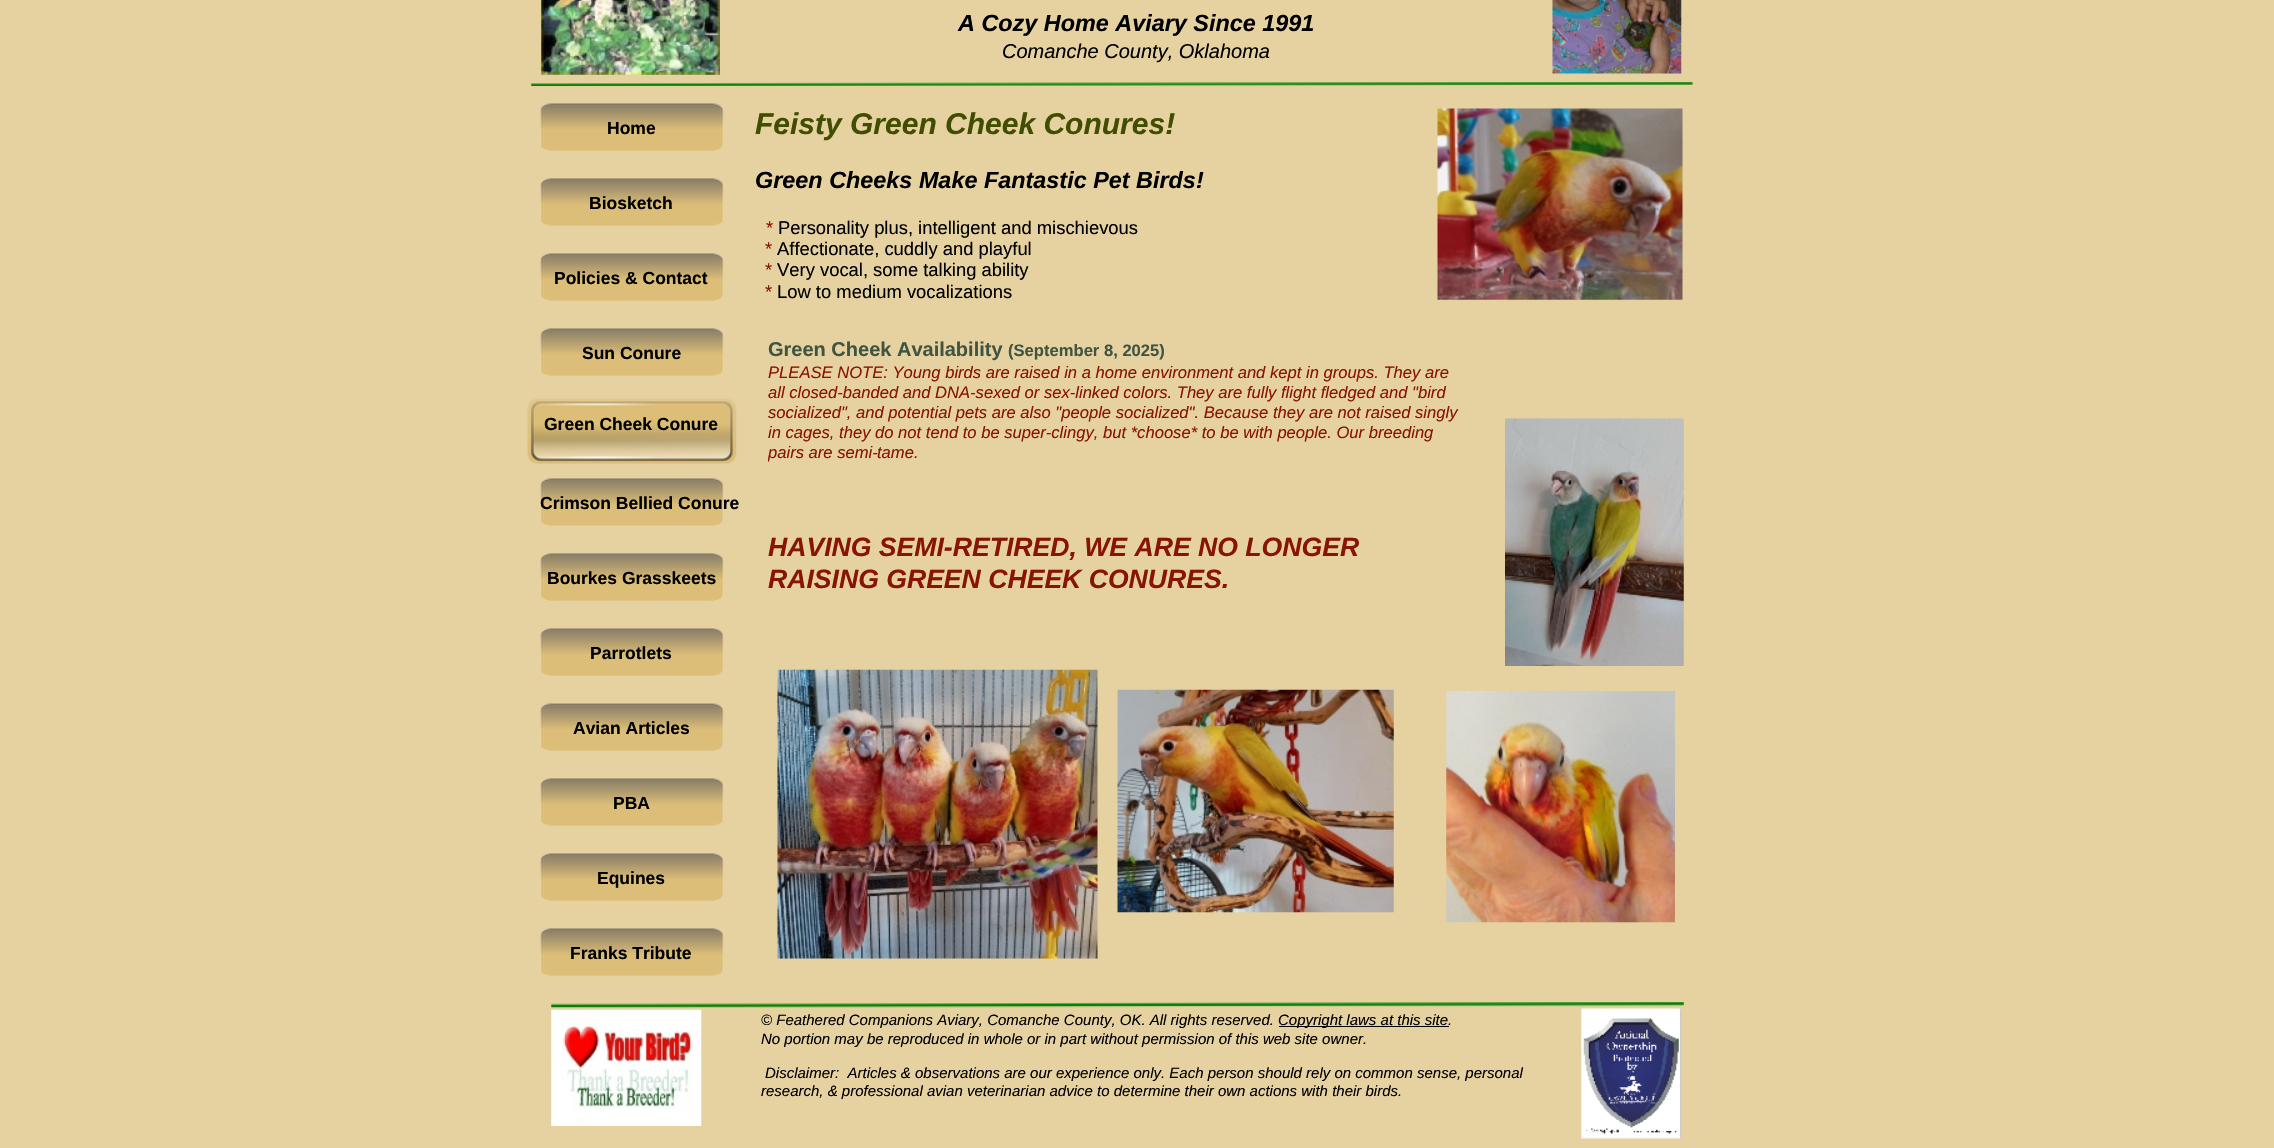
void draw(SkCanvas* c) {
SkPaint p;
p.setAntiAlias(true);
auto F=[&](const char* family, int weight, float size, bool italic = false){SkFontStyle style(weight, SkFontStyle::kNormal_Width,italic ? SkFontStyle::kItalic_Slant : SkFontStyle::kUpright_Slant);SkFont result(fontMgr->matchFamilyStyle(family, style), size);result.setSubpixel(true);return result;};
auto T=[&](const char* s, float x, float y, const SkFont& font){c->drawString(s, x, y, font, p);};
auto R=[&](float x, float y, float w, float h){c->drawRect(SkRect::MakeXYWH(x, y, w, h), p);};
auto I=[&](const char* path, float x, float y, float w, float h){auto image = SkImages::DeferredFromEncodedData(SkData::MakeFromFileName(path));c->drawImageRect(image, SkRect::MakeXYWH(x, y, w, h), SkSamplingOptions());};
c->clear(0xffe6d1a0);
I("1.png",541,0,179,75);
auto f1 = F("Liberation Sans",700,23.4,true);
p.setColor(0xff000000);
T("A Cozy Home Aviary Since 1991",958,31,f1);
auto f2 = F("Liberation Sans",400,20,true);
T("Comanche County, Oklahoma",1002,58,f2);
I("2.png",1552,0,130,74);
I("3.png",531,82,1162,4);
I("4.png",540,102,184,49);
auto f3 = F("Liberation Sans",700,17.5);
T("Home",607,134,f3);
I("4.png",540,177,184,49);
T("Biosketch",589,209,f3);
I("4.png",540,252,184,49);
T("Policies & Contact",554,284,f3);
I("4.png",540,327,184,49);
T("Sun Conure",582,359,f3);
I("5.png",527,398,210,67);
T("Green Cheek Conure",544,430,f3);
I("6.png",540,477,184,49);
T("Crimson Bellied Conure",540,509,f3);
I("4.png",540,552,184,49);
T("Bourkes Grasskeets",547,584,f3);
I("4.png",540,627,184,49);
T("Parrotlets",590,659,f3);
I("7.png",540,702,184,49);
T("Avian Articles",573,734,f3);
I("4.png",540,777,184,49);
T("PBA",613,809,f3);
I("4.png",540,852,184,49);
T("Equines",597,884,f3);
I("4.png",540,927,184,49);
T("Franks Tribute",570,959,f3);
auto f4 = F("Liberation Sans",700,30,true);
p.setColor(0xff414e00);
T("Feisty Green Cheek Conures!",755,134,f4);
p.setColor(0xff000000);
T("Green Cheeks Make Fantastic Pet Birds!",755,188,f1);
auto f5 = F("Liberation Sans",400,18.4);
p.setColor(0xff881502);
T("*",766,234,f5);
p.setColor(0xff000000);
T("Personality plus, intelligent and mischievous",778,234,f5);
p.setColor(0xff881502);
T("*",765,255,f5);
p.setColor(0xff000000);
T("Affectionate, cuddly and playful",777,255,f5);
p.setColor(0xff881502);
T("*",765,276,f5);
p.setColor(0xff000000);
T("Very vocal, some talking ability",777,276,f5);
p.setColor(0xff881502);
T("*",765,298,f5);
p.setColor(0xff000000);
T("Low to medium vocalizations",777,298,f5);
I("8.png",1437,108,246,192);
auto f6 = F("Liberation Sans",700,20);
p.setColor(0xff415441);
T("Green Cheek Availability",768,356,f6);
auto f7 = F("Liberation Sans",700,16.6);
T("(September 8, 2025)",1008,356,f7);
auto f8 = F("Liberation Sans",400,16.6,true);
p.setColor(0xff881502);
T("PLEASE NOTE: Young birds are raised in a home environment and kept in groups. They are",768,378,f8);
T("all closed-banded and DNA-sexed or sex-linked colors. They are fully flight fledged and \"bird",768,398,f8);
T("socialized\", and potential pets are also \"people socialized\". Because they are not raised singly",768,418,f8);
T("in cages, they do not tend to be super-clingy, but *choose* to be with people. Our breeding",768,438,f8);
c->save();
c->clipRect(SkRect::MakeXYWH(768,318,693,285));
T("pairs are semi-",768,458,f8);
c->restore();
T("tame.",877,458,f8);
auto f9 = F("Liberation Sans",700,26.6,true);
T("HAVING SEMI-RETIRED, WE ARE NO LONGER",768,556,f9);
T("RAISING GREEN CHEEK CONURES.",768,588,f9);
I("9.png",1505,418,179,248);
I("10.png",777,669,321,290);
I("11.png",1117,689,277,224);
I("12.png",1446,691,229,232);
I("13.png",551,1002,1133,6);
I("14.png",551,1009,151,117);
auto f10 = F("Liberation Sans",400,15,true);
p.setColor(0xff000000);
T("© Feathered Companions Aviary, Comanche County, OK. All rights reserved.",761,1025,f10);
R(1279,1026,170,1);
T("Copyright laws at this site.",1278,1025,f10);
T("No portion may be reproduced in whole or in part without permission of this web site owner.",761,1044,f10);
T("Disclaimer:  Articles & observations are our experience only. Each person should rely on common sense, personal",765,1078,f10);
T("research, & professional avian veterinarian advice to determine their own actions with their birds.",761,1096,f10);
I("15.png",1581,1008,101,131);
}
